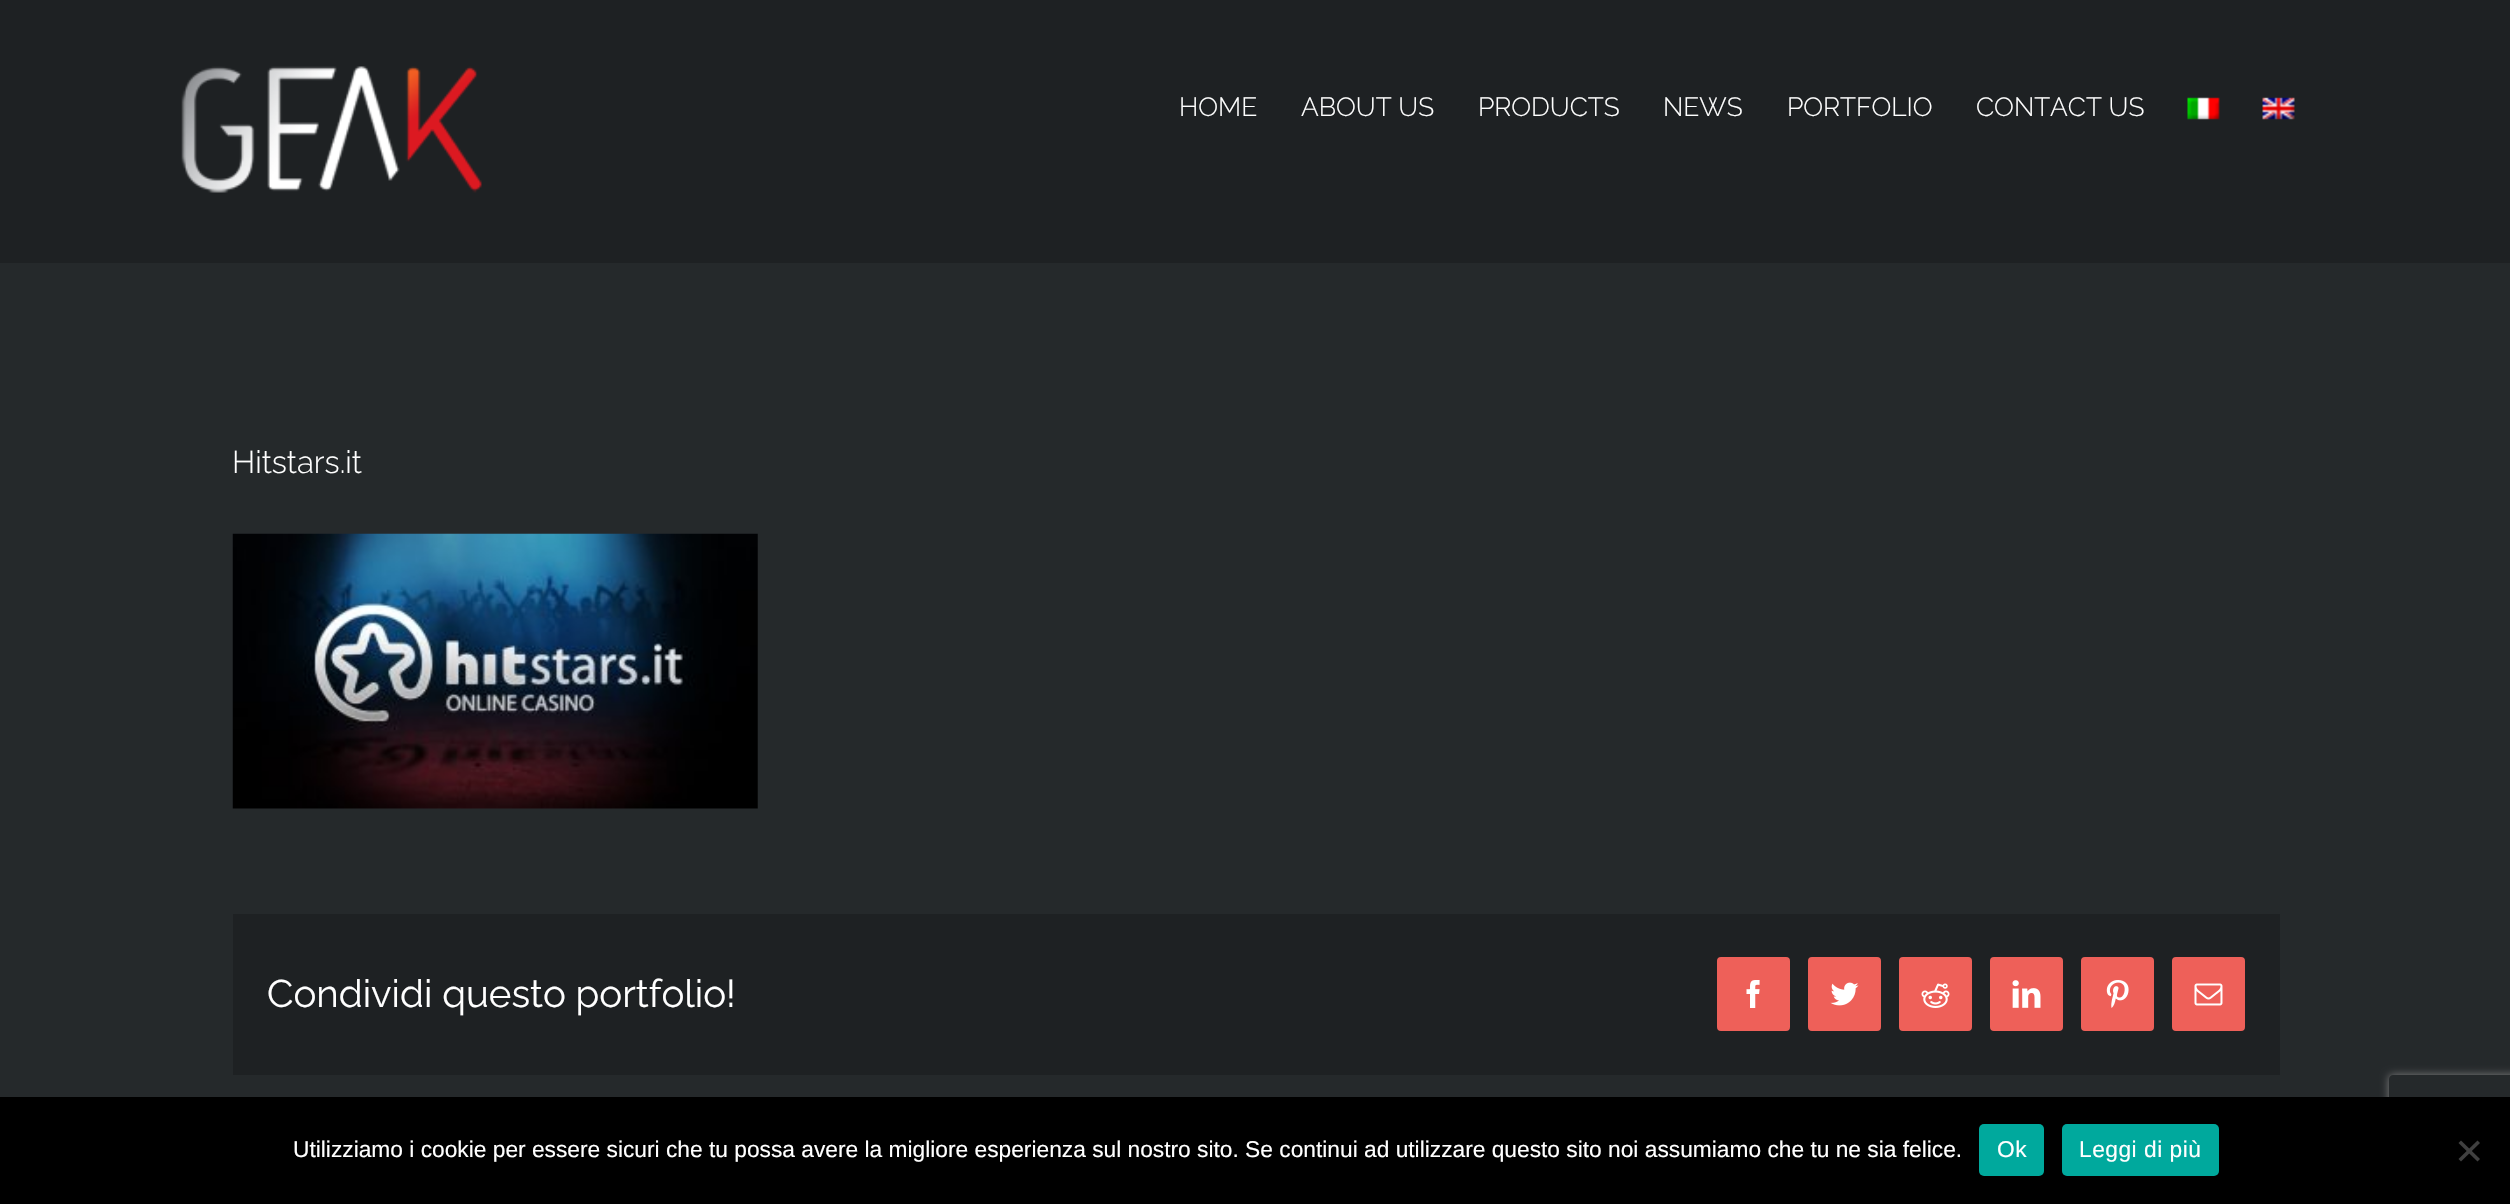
void draw(SkCanvas* c) {
SkPaint p;
p.setAntiAlias(true);
auto F=[&](const char* family, int weight, float size, bool italic = false){SkFontStyle style(weight, SkFontStyle::kNormal_Width,italic ? SkFontStyle::kItalic_Slant : SkFontStyle::kUpright_Slant);SkFont result(fontMgr->matchFamilyStyle(family, style), size);result.setSubpixel(true);return result;};
auto T=[&](const char* s, float x, float y, const SkFont& font){c->drawString(s, x, y, font, p);};
auto L=[&](const char* s, float x, float y, const SkFont& font, const SkPaint& ink, float letter, float word){std::vector<SkGlyphID> glyphs(font.countText(s, strlen(s), SkTextEncoding::kUTF8));std::vector<float> xs(glyphs.size());font.textToGlyphs(s, strlen(s), SkTextEncoding::kUTF8, glyphs);font.getXPos(glyphs, xs, x);float extra = 0;for (size_t i = 0; i < glyphs.size(); i++) {xs[i] += extra;extra += letter + word * (glyphs[i] == font.unicharToGlyph(' '));}c->drawTextBlob(SkTextBlob::MakeFromPosHGlyphs(glyphs, xs, y, font), 0, 0, ink);};
auto R=[&](float x, float y, float w, float h){c->drawRect(SkRect::MakeXYWH(x, y, w, h), p);};
auto Q=[&](float x, float y, float w, float h, float radius){c->drawRoundRect(SkRect::MakeXYWH(x, y, w, h), radius, radius, p);};
auto I=[&](const char* path, float x, float y, float w, float h){auto image = SkImages::DeferredFromEncodedData(SkData::MakeFromFileName(path));c->drawImageRect(image, SkRect::MakeXYWH(x, y, w, h), SkSamplingOptions());};
auto P=[&](const char* data, bool evenOdd = false){SkPath result = *SkParsePath::FromSVGString(data);if (evenOdd) result.setFillType(SkPathFillType::kEvenOdd);return result;};
c->clear(0xff25292b);
p.setColor(0xff1e2123);
R(0,0,2510,263);
I("1.png",181,66,301,127);
auto f1 = F("Raleway",300,26.25);
p.setColor(0xffffffff);
T("HOME",1179,116,f1);
T("ABOUT US",1301,116,f1);
T("PRODUCTS",1478,116,f1);
T("NEWS",1663,116,f1);
T("PORTFOLIO",1787,116,f1);
T("CONTACT US",1976,116,f1);
I("2.png",2187,97,33,23);
I("3.png",2262,97,33,23);
auto f2 = F("Raleway",300,31.5);
T("Hitstars.it",232,473,f2);
I("4.png",232,533,526,276);
p.setColor(0xff1e2123);
R(233,914,2047,161);
auto f3 = F("Raleway",400,38.5);
p.setColor(0xffffffff);
T("Condividi questo portfolio!",267,1007,f3);
p.setColor(0xffee6059);
c->drawRoundRect(SkRect::MakeXYWH(1718,958,71,72),3,3,p);
p.setStroke(true);
p.setStrokeWidth(2);
c->drawRoundRect(SkRect::MakeXYWH(1718,958,71,72),3,3,p);
I("5.png",1746,980,14,28);
p.setStroke(false);
c->drawRoundRect(SkRect::MakeXYWH(1809,958,71,72),3,3,p);
p.setStroke(true);
c->drawRoundRect(SkRect::MakeXYWH(1809,958,71,72),3,3,p);
I("6.png",1830,982,29,24);
p.setStroke(false);
c->drawRoundRect(SkRect::MakeXYWH(1900,958,71,72),3,3,p);
p.setStroke(true);
c->drawRoundRect(SkRect::MakeXYWH(1900,958,71,72),3,3,p);
I("7.png",1921,983,29,25);
p.setStroke(false);
c->drawRoundRect(SkRect::MakeXYWH(1991,958,71,72),3,3,p);
p.setStroke(true);
c->drawRoundRect(SkRect::MakeXYWH(1991,958,71,72),3,3,p);
I("8.png",2012,980,29,28);
p.setStroke(false);
c->drawRoundRect(SkRect::MakeXYWH(2082,958,71,72),3,3,p);
p.setStroke(true);
c->drawRoundRect(SkRect::MakeXYWH(2082,958,71,72),3,3,p);
I("9.png",2106,980,23,28);
p.setStroke(false);
c->drawRoundRect(SkRect::MakeXYWH(2173,958,71,72),3,3,p);
p.setStroke(true);
c->drawRoundRect(SkRect::MakeXYWH(2173,958,71,72),3,3,p);
I("10.png",2194,983,29,23);
c->save();
c->clipPath(P("M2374 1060h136v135h-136zm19 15h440c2 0 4 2 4 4v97c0 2-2 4-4 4h-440c-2 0-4-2-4-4v-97c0-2 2-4 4-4z",true),true);
p.setStroke(false);
p.setColor(0xff808080);
p.setMaskFilter(SkMaskFilter::MakeBlur(kNormal_SkBlurStyle, 4.5));
c->drawRoundRect(SkRect::MakeXYWH(2389,1075,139,105),4,4,p);
p.setMaskFilter(nullptr);
c->restore();
p.setColor(0xff000000);
R(0,1097,2510,107);
auto f4 = F("Liberation Sans",400,22.75);
p.setColor(0xffffffff);
T("Utilizziamo i cookie per essere sicuri che tu possa avere la migliore esperienza sul nostro sito. Se continui ad utilizzare questo sito noi assumiamo che tu ne sia felice.",293,1157,f4);
p.setColor(0xff00a99d);
Q(1979,1124,65,52,5);
p.setColor(0xffffffff);
L("Ok",1997,1157,f4,p,.5,0);
p.setColor(0xff00a99d);
Q(2062,1124,157,52,5);
p.setColor(0xffffffff);
L("Leggi di più",2079,1157,f4,p,.5,0);
p.setColor(0xff404040);
c->drawPath(P("M2477.5 1140.5l2.5 2.5l-19 18.5l-2.5-2.5z"),p);
c->drawPath(P("M2458.5 1143l2.5-2.5l19 18.5l-2.5 2.5z"),p);
}
